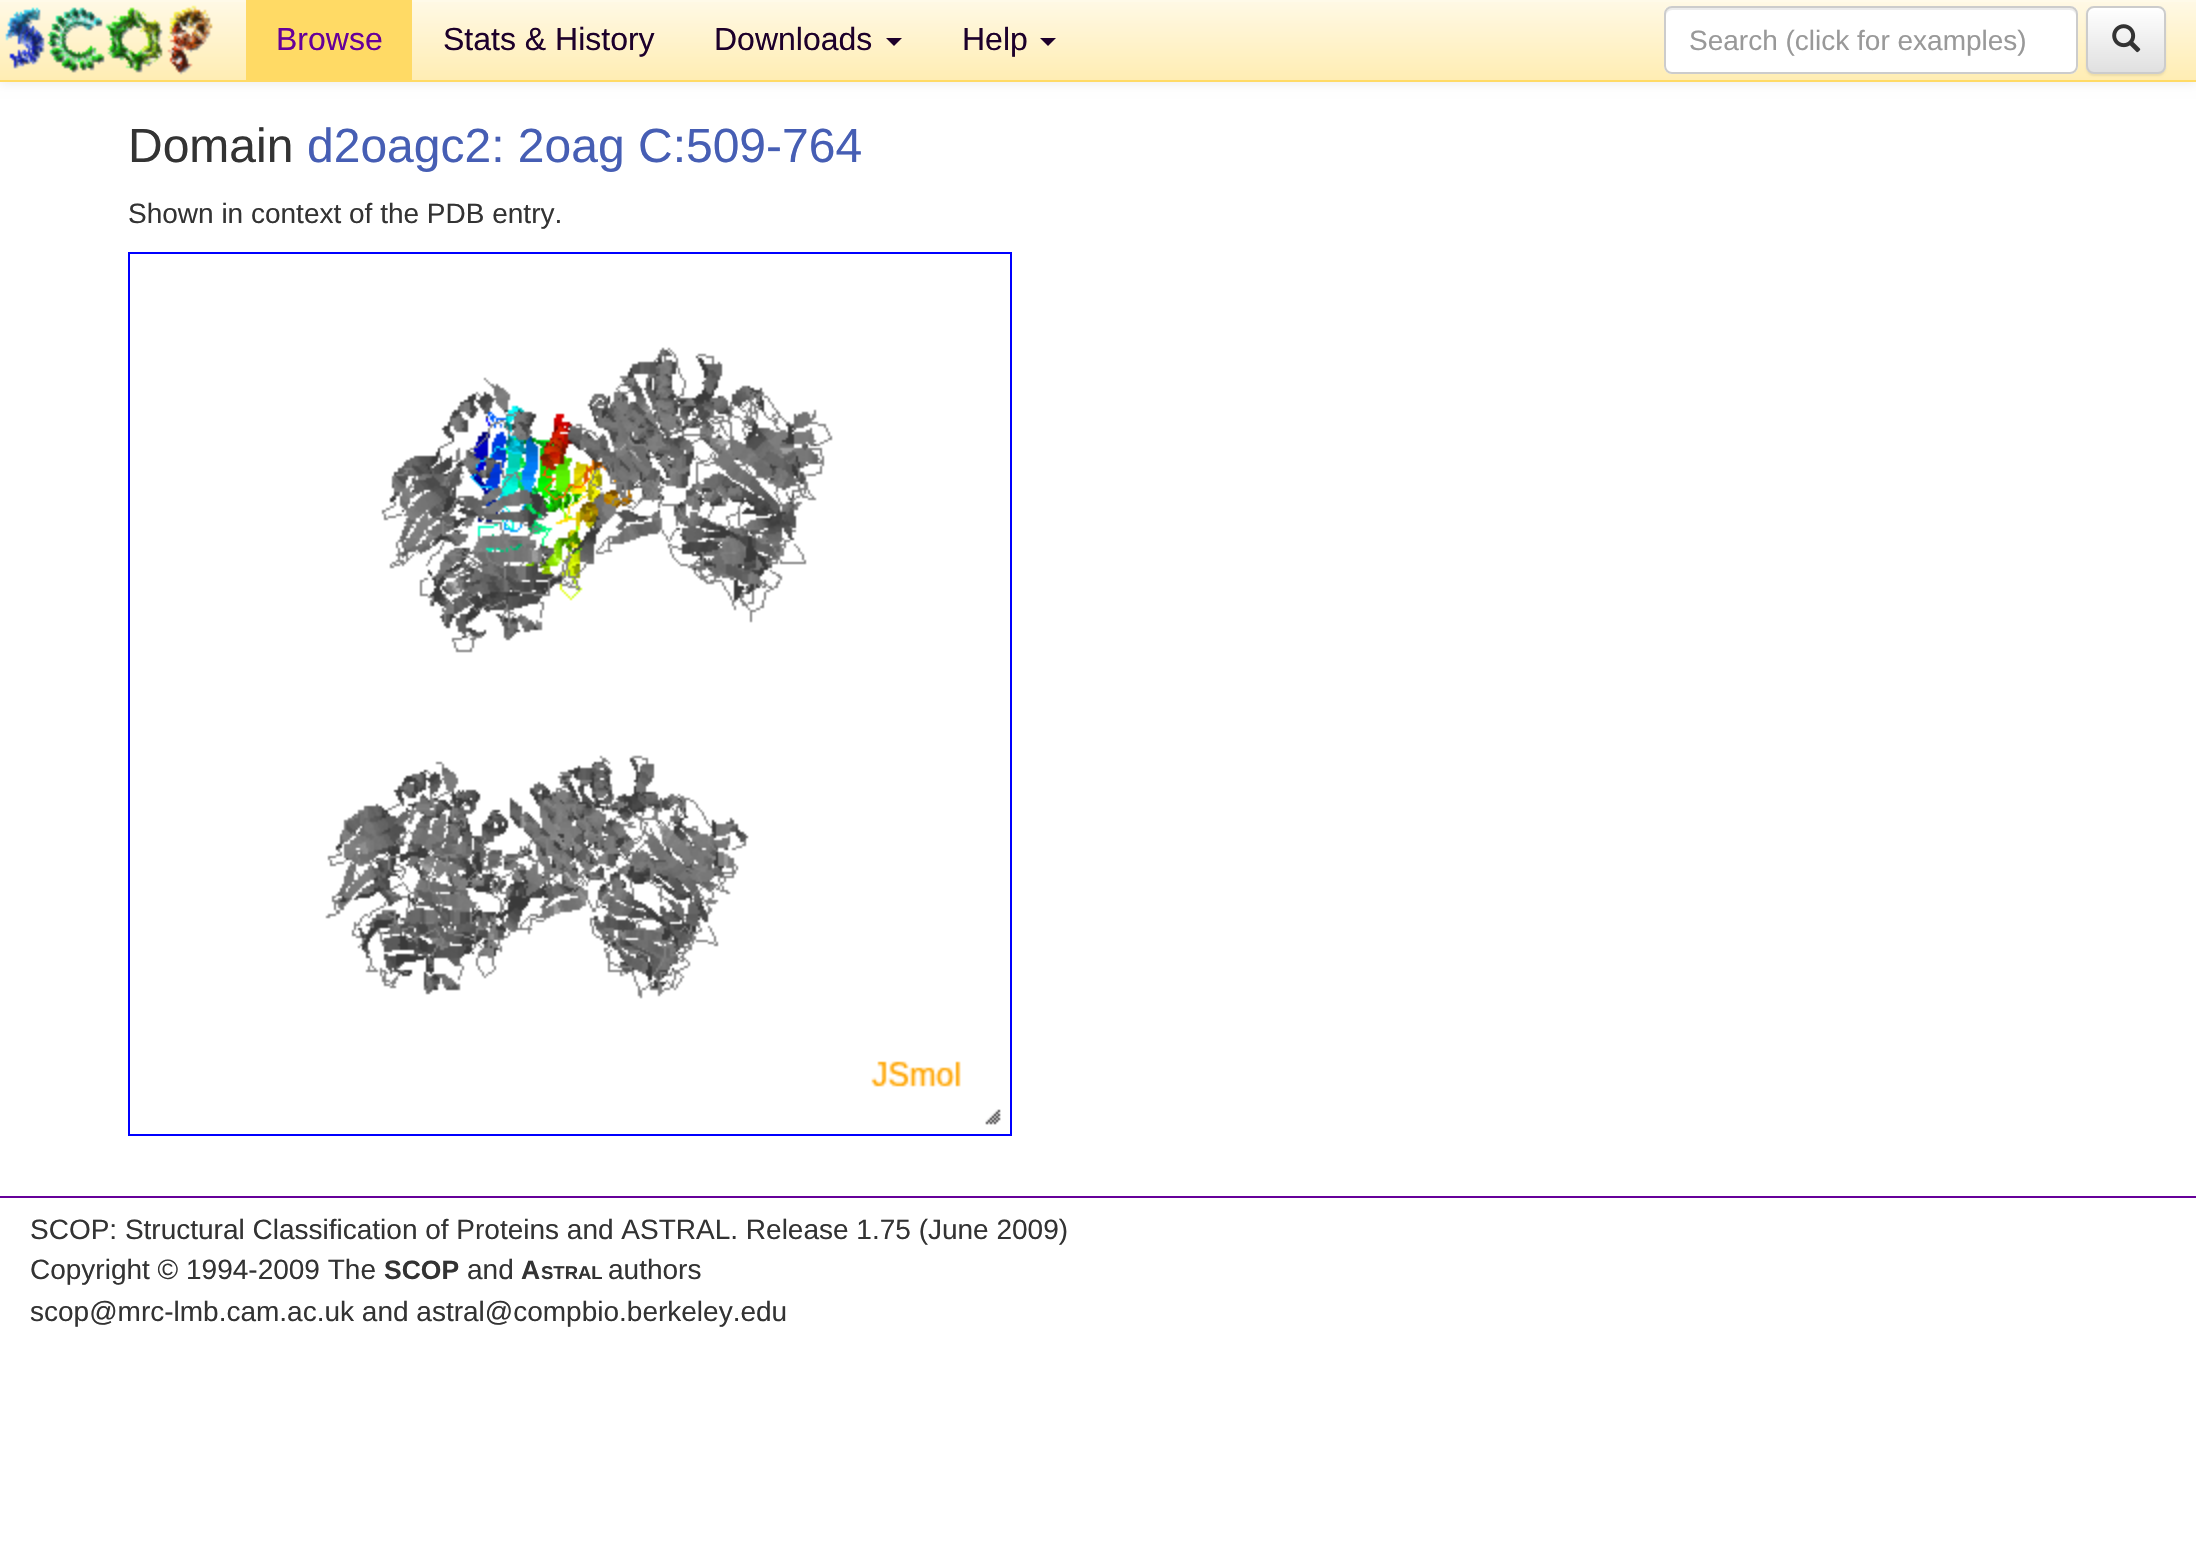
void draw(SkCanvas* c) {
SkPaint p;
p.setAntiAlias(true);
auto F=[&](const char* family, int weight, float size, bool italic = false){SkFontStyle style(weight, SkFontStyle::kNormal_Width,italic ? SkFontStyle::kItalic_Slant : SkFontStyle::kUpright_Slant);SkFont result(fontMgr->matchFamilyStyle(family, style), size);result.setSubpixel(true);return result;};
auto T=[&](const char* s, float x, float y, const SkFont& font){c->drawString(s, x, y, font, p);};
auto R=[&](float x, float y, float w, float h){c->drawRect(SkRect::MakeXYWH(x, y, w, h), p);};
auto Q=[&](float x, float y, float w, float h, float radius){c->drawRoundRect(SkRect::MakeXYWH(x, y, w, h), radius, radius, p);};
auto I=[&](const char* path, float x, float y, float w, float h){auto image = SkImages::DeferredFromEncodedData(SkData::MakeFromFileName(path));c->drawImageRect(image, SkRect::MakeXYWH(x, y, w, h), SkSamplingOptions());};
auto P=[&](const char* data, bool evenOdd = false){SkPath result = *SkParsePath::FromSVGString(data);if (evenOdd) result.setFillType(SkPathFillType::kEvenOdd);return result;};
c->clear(0xffffffff);
p.setColor(0x12000000);
p.setMaskFilter(SkMaskFilter::MakeBlur(kNormal_SkBlurStyle, 5));
c->drawRect(SkRect::MakeXYWH(0,2,2196,82),p);
p.setMaskFilter(nullptr);
{
const SkColor colors[] = {0xfffff9e6,0xffffedb3};
const float stops[] = {0,1};
const SkPoint ends[] = {{1098,0}, {1098,80}};
p.setShader(SkGradientShader::MakeLinear(ends, colors, stops, 2, SkTileMode::kClamp));
p.setAlpha(255);
}
R(0,2,2196,78);
p.setShader(nullptr);
p.setColor(0xfffffae9);
R(0,0,2196,2);
p.setColor(0xffffda65);
R(0,80,2196,2);
I("1.png",5,5,208,70);
R(246,0,166,80);
auto f1 = F("Liberation Sans",400,32);
p.setColor(0xff660099);
T("Browse",276,50,f1);
p.setColor(0xff1d002b);
T("Stats & History",443,50,f1);
T("Downloads",714,50,f1);
c->drawPath(P("M886 38h16l-8 8z"),p);
T("Help",962,50,f1);
c->drawPath(P("M1040 38h16l-8 8z"),p);
p.setColor(0xffffffff);
Q(1664,6,414,68,8);
p.setColor(0xffececec);
c->drawPath(P("M1672 10h398c3 0 6 3 6 6c0-4-1-8-6-8h-398c-5 0-6 4-6 8c0-3 3-6 6-6z"),p);
p.setStroke(true);
p.setStrokeWidth(2);
p.setColor(0xffcccccc);
c->drawRoundRect(SkRect::MakeXYWH(1665,7,412,66),7,7,p);
auto f2 = F("Liberation Sans",400,28);
p.setStroke(false);
p.setColor(0xff999999);
T("Search (click for examples)",1689,50,f2);
p.setColor(0x12000000);
p.setMaskFilter(SkMaskFilter::MakeBlur(kNormal_SkBlurStyle, 1));
c->drawRoundRect(SkRect::MakeXYWH(2086,8,80,68),8,8,p);
p.setMaskFilter(nullptr);
c->save();
c->clipPath(P("M2094 6h64c4.5 0 8 3.5 8 8v52c0 4.5-3.5 8-8 8h-64c-4.5 0-8-3.5-8-8v-52c0-4.5 3.5-8 8-8z"),true);
{
const SkColor colors[] = {0xffffffff,0xffe0e0e0};
const float stops[] = {0,1};
const SkPoint ends[] = {{2126,8}, {2126,72}};
p.setShader(SkGradientShader::MakeLinear(ends, colors, stops, 2, SkTileMode::kClamp));
p.setAlpha(255);
}
R(2086,8,80,64);
c->restore();
p.setShader(nullptr);
p.setColor(0xffffffff);
c->drawPath(P("M2094 10h64c3 0 6 3 6 6c0-10-8-8-17-8h-42c-9 0-17-2-17 8c0-3 3-6 6-6z"),p);
p.setStroke(true);
p.setColor(0xffcccccc);
c->drawRoundRect(SkRect::MakeXYWH(2087,7,78,66),7,7,p);
I("2.png",2112,24,29,29);
auto f3 = F("Liberation Sans",400,48);
p.setStroke(false);
p.setColor(0xff333333);
T("Domain",128,162,f3);
p.setColor(0xff465eb4);
T("d2oagc2: 2oag C:509-764",307,162,f3);
p.setColor(0xff333333);
T("Shown in context of the PDB entry.",128,223,f2);
p.setStroke(true);
p.setColor(0xff0000ff);
c->drawRect(SkRect::MakeXYWH(129,253,882,882),p);
I("3.png",325,347,636,740);
I("4.png",985,1109,16,16);
p.setStroke(false);
p.setColor(0xff660099);
R(0,1196,2196,2);
p.setColor(0xff333333);
T("SCOP: Structural Classification of Proteins and ASTRAL. Release 1.75 (June 2009)",30,1239,f2);
T("Copyright © 1994-2009 The",30,1279,f2);
auto f4 = F("Liberation Sans",700,26.5);
T("SCOP",384,1279,f4);
T("and",467,1279,f2);
T("A",521,1279,f4);
auto f5 = F("Liberation Sans",700,18.5);
T("STRAL",541,1279,f5);
T("authors",608,1279,f2);
T("scop@mrc-lmb.cam.ac.uk and astral@compbio.berkeley.edu",30,1321,f2);
}
